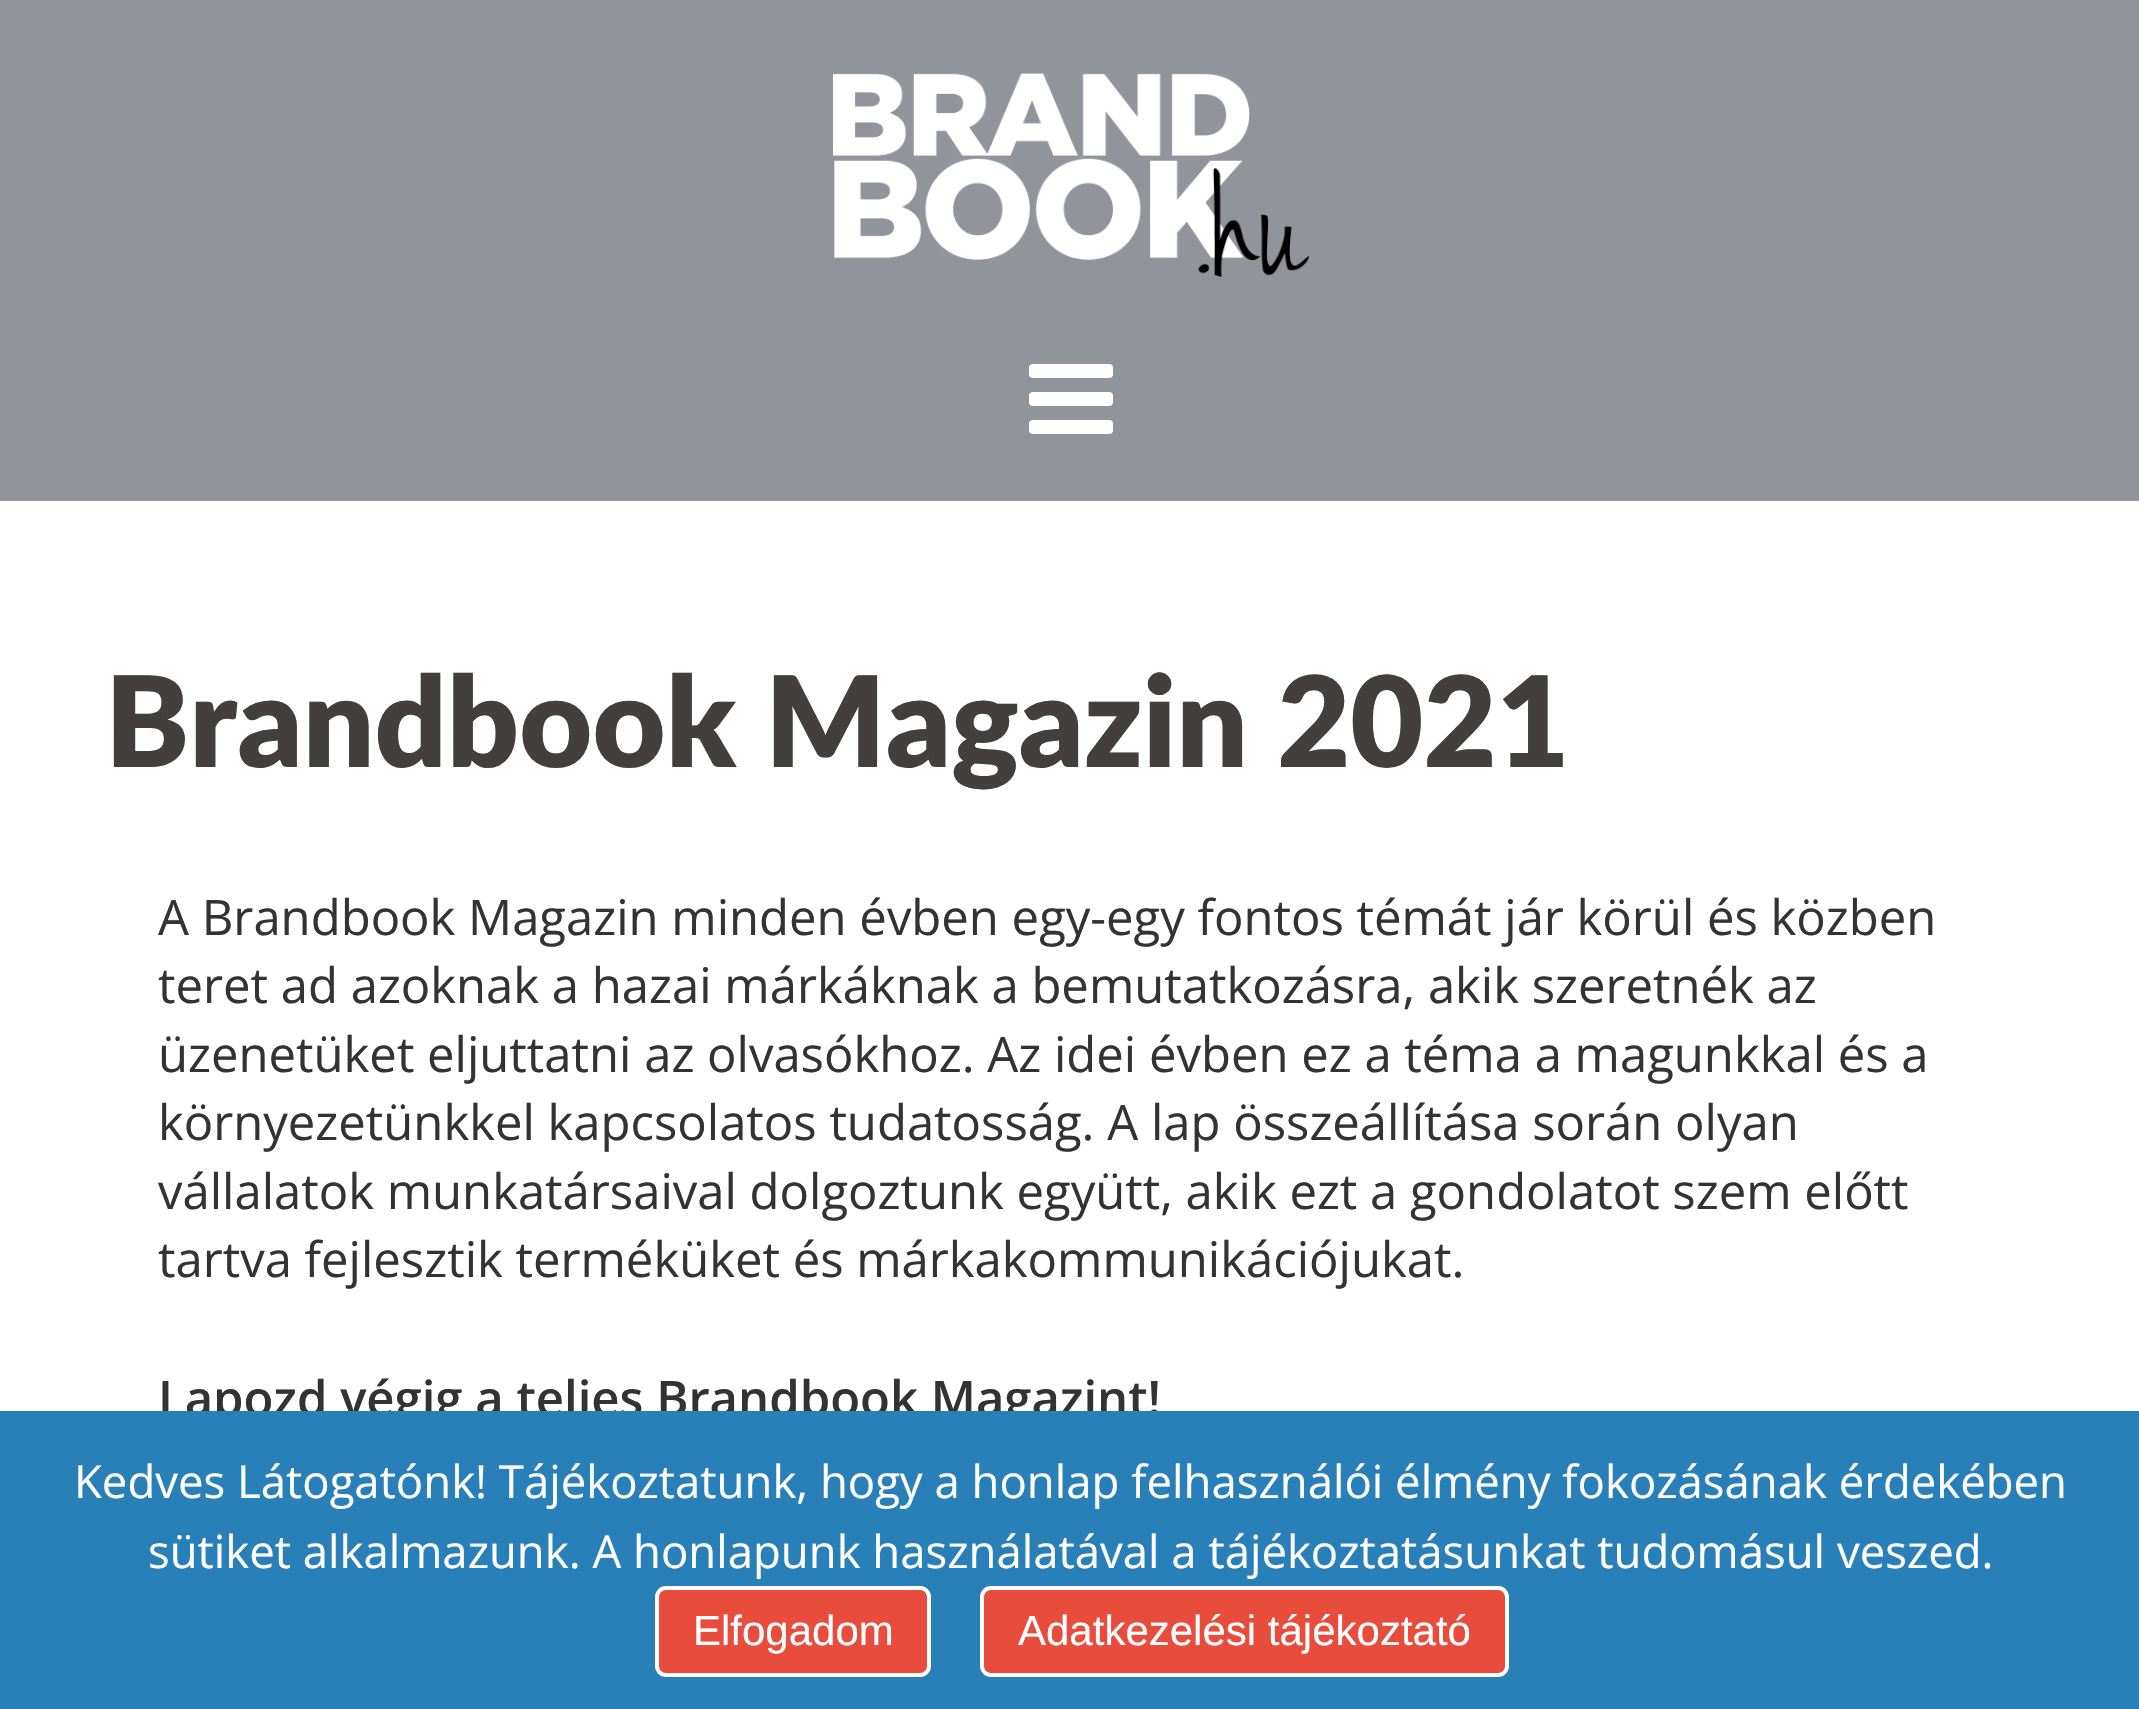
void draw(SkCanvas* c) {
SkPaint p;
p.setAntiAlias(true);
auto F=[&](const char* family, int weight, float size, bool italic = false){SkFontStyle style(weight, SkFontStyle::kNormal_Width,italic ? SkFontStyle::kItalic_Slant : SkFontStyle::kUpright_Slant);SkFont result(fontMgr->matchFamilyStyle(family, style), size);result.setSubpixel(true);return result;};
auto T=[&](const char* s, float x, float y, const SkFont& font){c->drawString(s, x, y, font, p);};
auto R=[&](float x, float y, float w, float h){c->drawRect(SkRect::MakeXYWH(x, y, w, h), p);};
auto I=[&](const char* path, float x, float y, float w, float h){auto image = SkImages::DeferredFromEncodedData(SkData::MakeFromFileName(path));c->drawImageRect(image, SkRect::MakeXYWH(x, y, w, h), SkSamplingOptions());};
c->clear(0xffffffff);
p.setColor(0xff91959b);
R(0,0,2139,501);
I("1.png",833,73,476,205);
I("2.png",1029,364,84,70);
auto f1 = F("Lato",900,126);
p.setColor(0xff443f3f);
T("Brandbook Magazin 2021",105,767,f1);
auto f2 = F("Open Sans",400,49);
p.setColor(0xff333333);
T("A Brandbook Magazin minden évben egy-egy fontos témát jár körül és közben",158,935,f2);
T("teret ad azoknak a hazai márkáknak a bemutatkozásra, akik szeretnék az",158,1003,f2);
T("üzenetüket eljuttatni az olvasókhoz. Az idei évben ez a téma a magunkkal és a",158,1072,f2);
T("környezetünkkel kapcsolatos tudatosság. A lap összeállítása során olyan",158,1140,f2);
T("vállalatok munkatársaival dolgoztunk együtt, akik ezt a gondolatot szem előtt",158,1209,f2);
T("tartva fejlesztik terméküket és márkakommunikációjukat.",158,1277,f2);
auto f3 = F("Open Sans",600,49);
T("Lapozd végig a teljes Brandbook Magazint!",158,1416,f3);
p.setColor(0xff2980b9);
R(0,1411,2139,298);
auto f4 = F("Open Sans",400,45.5);
p.setColor(0xffffffff);
T("Kedves Látogatónk! Tájékoztatunk, hogy a honlap felhasználói élmény fokozásának érdekében",74,1498,f4);
T("sütiket alkalmazunk. A honlapunk használatával a tájékoztatásunkat tudomásul veszed.",148,1568,f4);
p.setColor(0xffe74c3c);
c->drawRoundRect(SkRect::MakeXYWH(657,1588,272,87),9,9,p);
p.setStroke(true);
p.setStrokeWidth(4);
p.setColor(0xffffffff);
c->drawRoundRect(SkRect::MakeXYWH(657,1588,272,87),9,9,p);
auto f5 = F("Liberation Sans",400,42);
p.setStroke(false);
T("Elfogadom",693,1645,f5);
p.setColor(0xffe74c3c);
c->drawRoundRect(SkRect::MakeXYWH(982,1588,525,87),9,9,p);
p.setStroke(true);
p.setColor(0xffffffff);
c->drawRoundRect(SkRect::MakeXYWH(982,1588,525,87),9,9,p);
p.setStroke(false);
T("Adatkezelési tájékoztató",1018,1645,f5);
}
